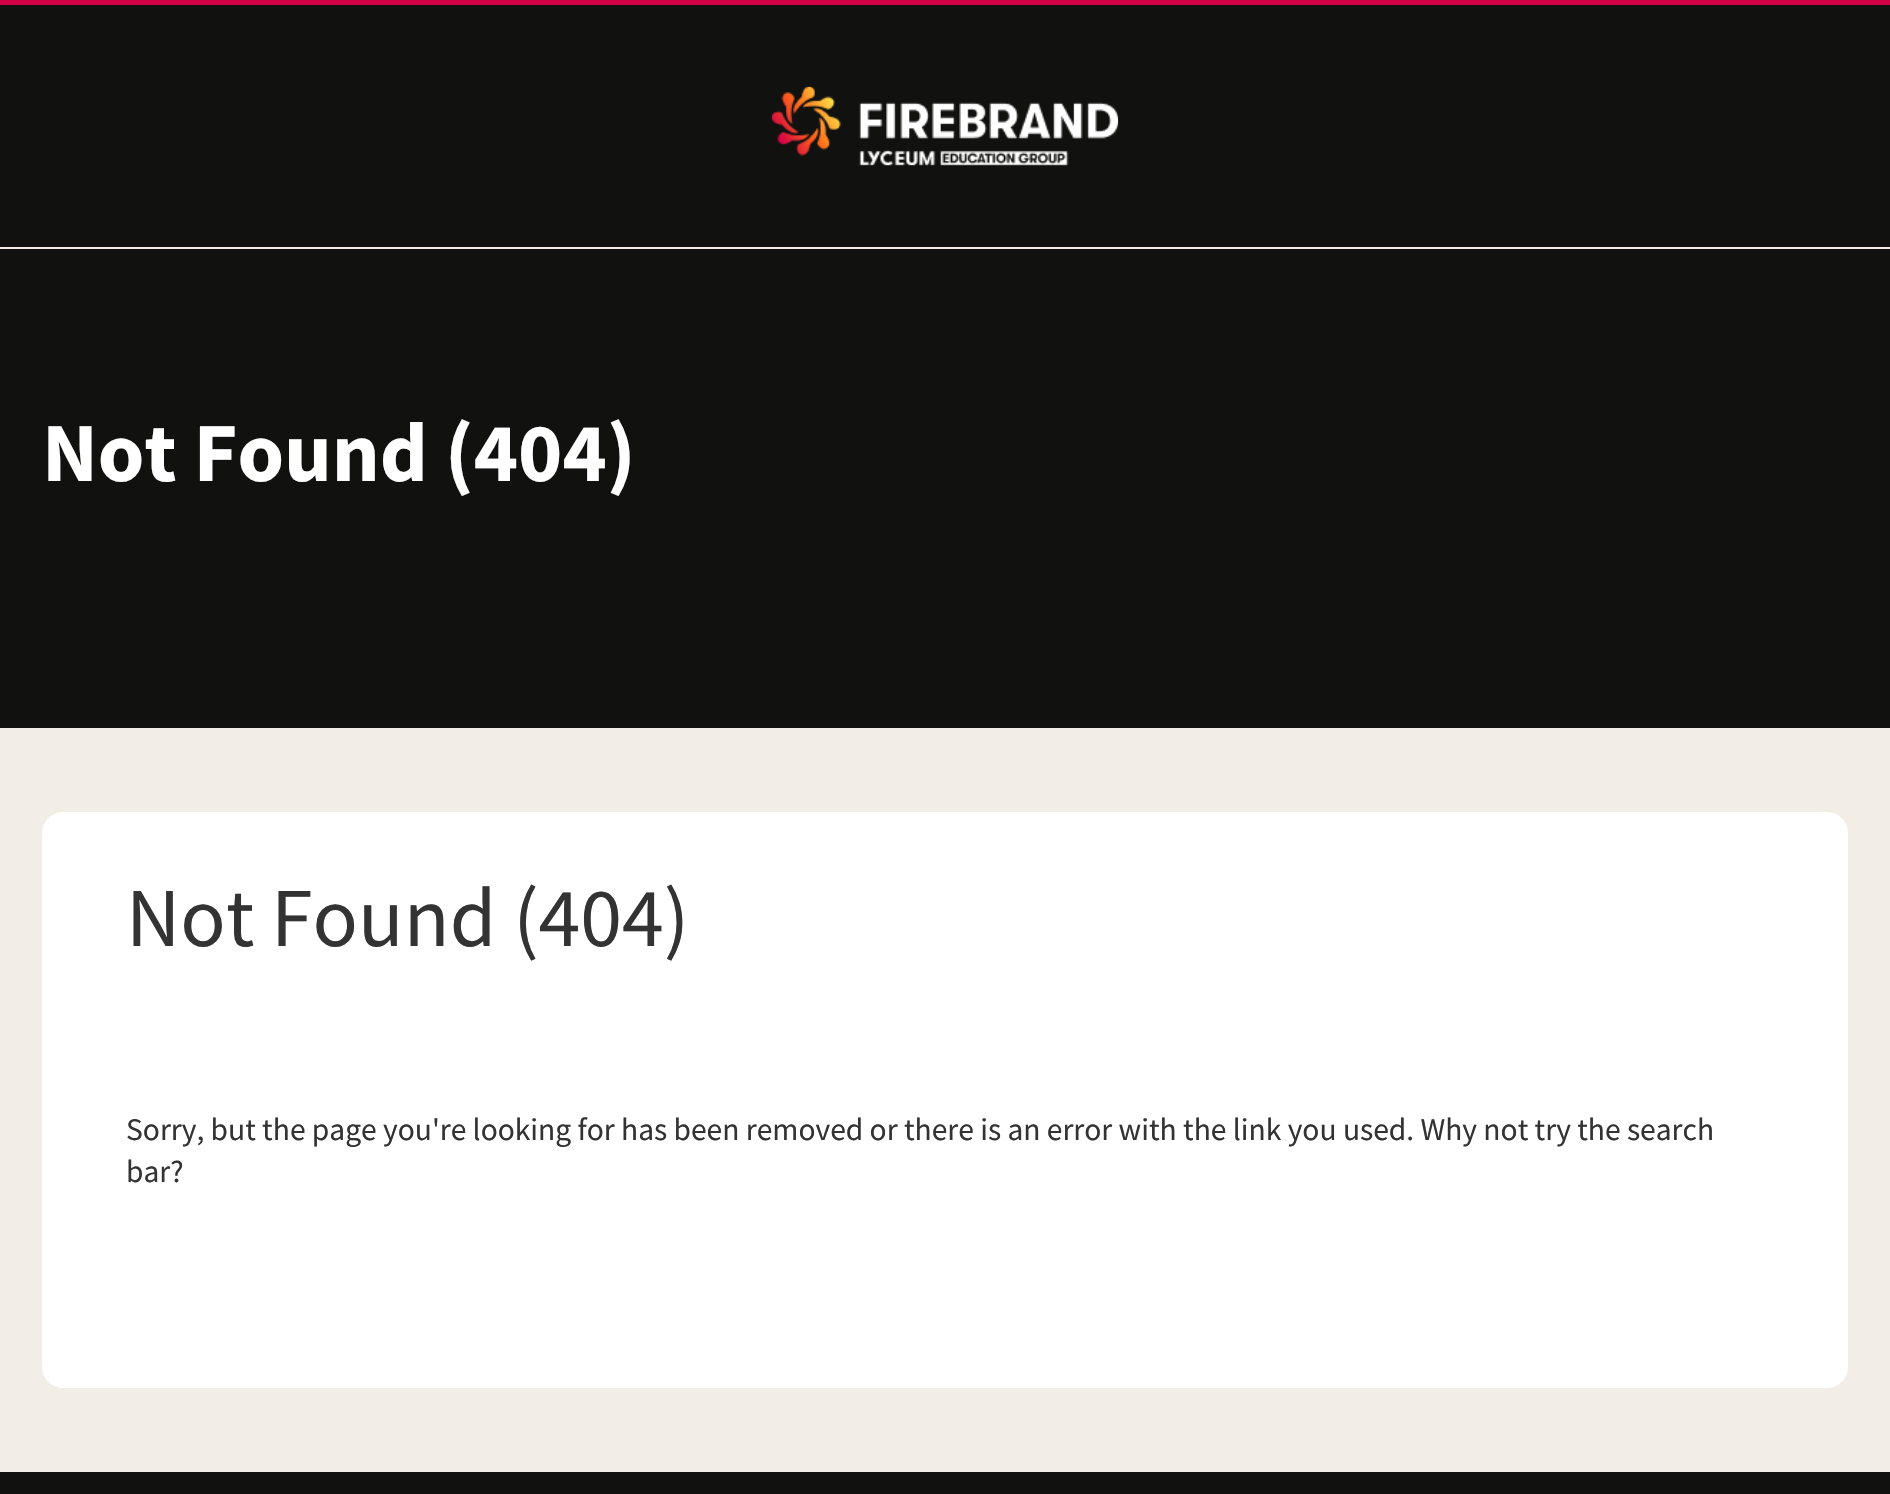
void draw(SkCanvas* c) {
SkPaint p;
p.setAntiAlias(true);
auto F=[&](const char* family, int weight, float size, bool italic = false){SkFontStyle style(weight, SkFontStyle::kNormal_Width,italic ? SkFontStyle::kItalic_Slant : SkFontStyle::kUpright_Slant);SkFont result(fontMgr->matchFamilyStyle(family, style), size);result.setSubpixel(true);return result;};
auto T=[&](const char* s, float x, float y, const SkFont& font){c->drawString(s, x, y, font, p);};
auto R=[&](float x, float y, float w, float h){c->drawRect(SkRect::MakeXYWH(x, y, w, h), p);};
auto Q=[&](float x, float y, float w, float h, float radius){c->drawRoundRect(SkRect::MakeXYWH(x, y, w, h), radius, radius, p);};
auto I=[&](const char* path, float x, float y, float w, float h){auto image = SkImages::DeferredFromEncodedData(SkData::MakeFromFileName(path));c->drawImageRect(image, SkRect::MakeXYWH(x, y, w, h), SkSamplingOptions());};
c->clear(0xfff2eee6);
p.setColor(0xffd30047);
R(0,0,1890,5);
p.setColor(0xff111110);
R(0,5,1890,242);
I("1.png",771,86,348,80);
R(0,249,1890,479);
auto f1 = F("Source Sans Pro",700,84);
p.setColor(0xffffffff);
T("Not Found (404)",42,481,f1);
Q(42,812,1806,576,21);
auto f2 = F("Source Sans Pro",400,84);
p.setColor(0xff333333);
T("Not Found (404)",126,946,f2);
auto f3 = F("Source Sans Pro",400,31.5);
T("Sorry, but the page you're looking for has been removed or there is an error with the link you used. Why not try the search",126,1140,f3);
T("bar?",126,1182,f3);
p.setColor(0xff111110);
R(0,1472,1890,22);
}
